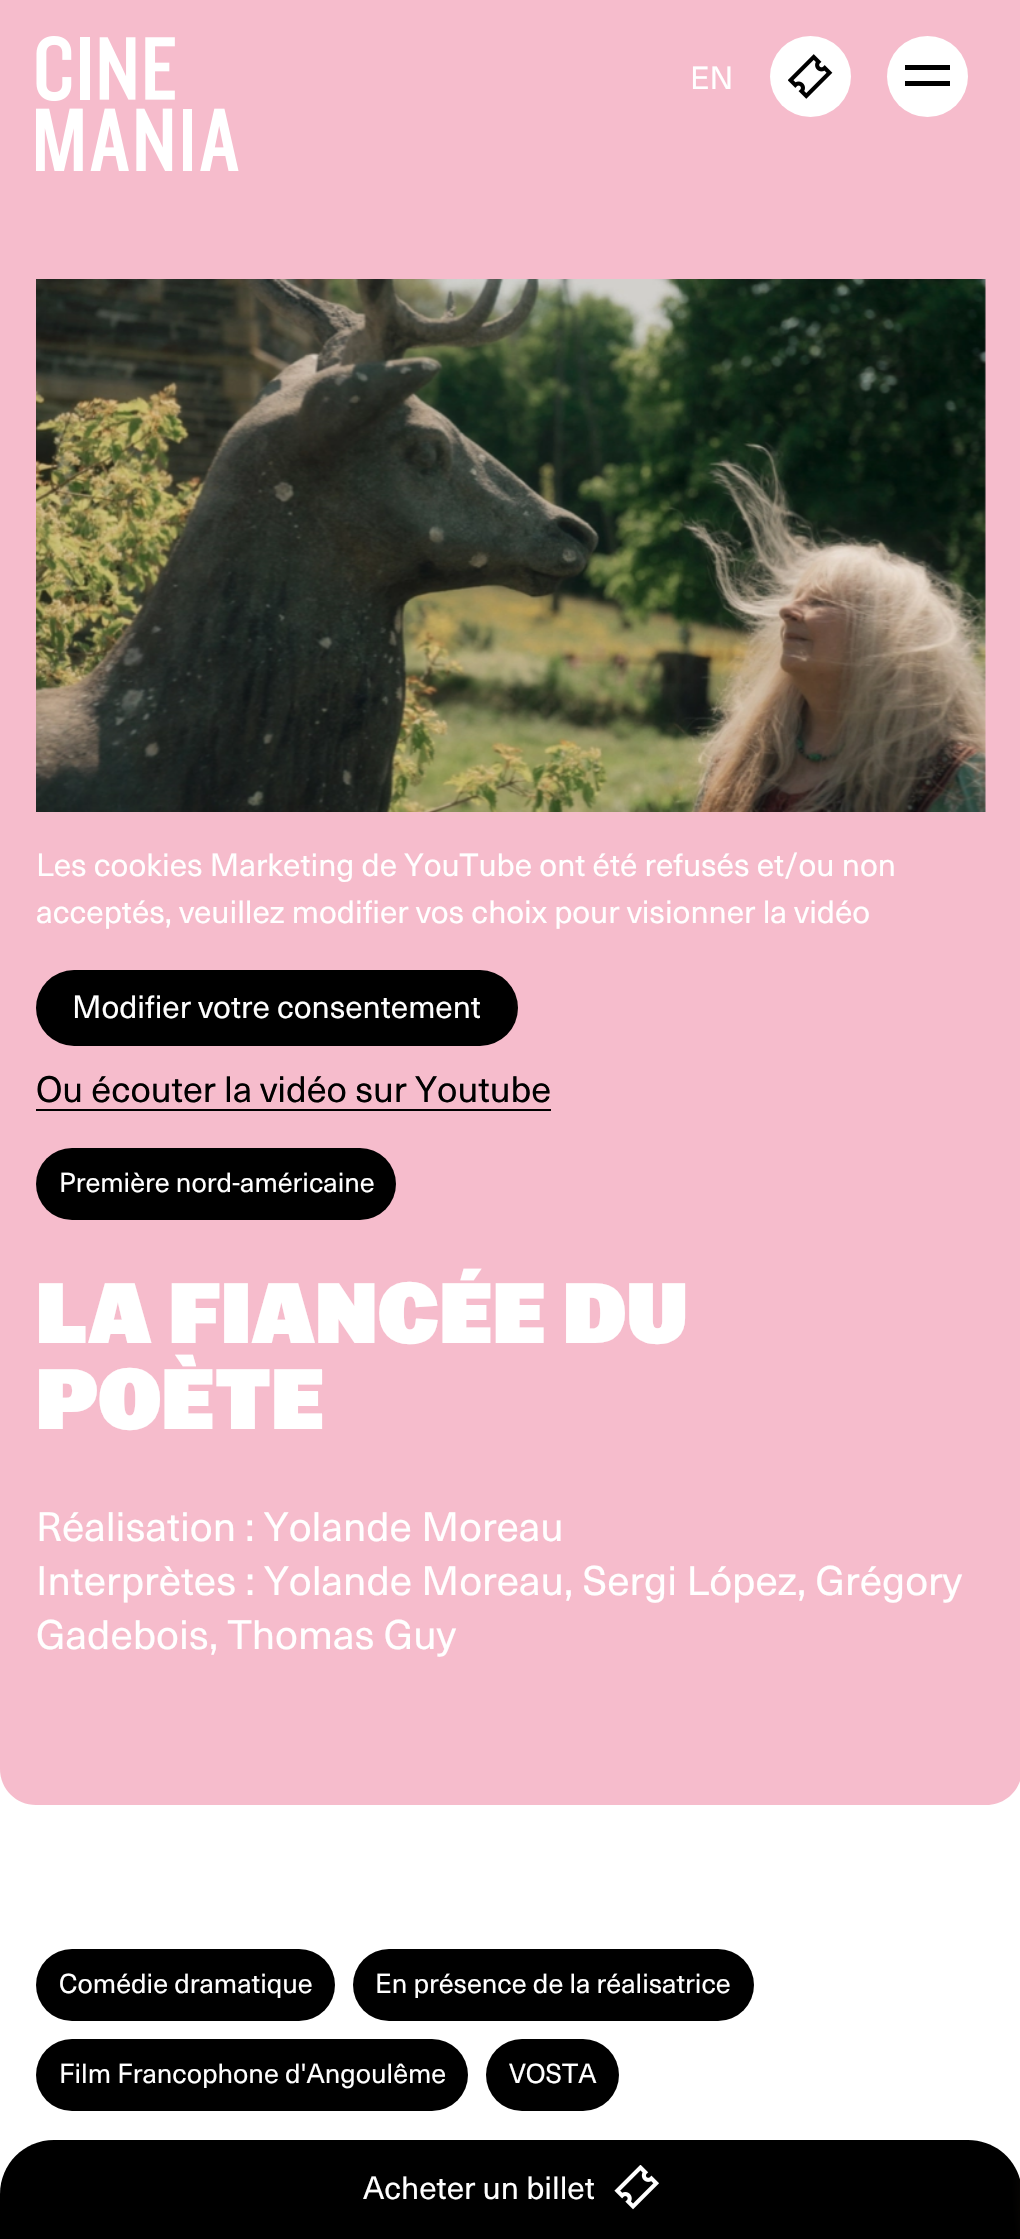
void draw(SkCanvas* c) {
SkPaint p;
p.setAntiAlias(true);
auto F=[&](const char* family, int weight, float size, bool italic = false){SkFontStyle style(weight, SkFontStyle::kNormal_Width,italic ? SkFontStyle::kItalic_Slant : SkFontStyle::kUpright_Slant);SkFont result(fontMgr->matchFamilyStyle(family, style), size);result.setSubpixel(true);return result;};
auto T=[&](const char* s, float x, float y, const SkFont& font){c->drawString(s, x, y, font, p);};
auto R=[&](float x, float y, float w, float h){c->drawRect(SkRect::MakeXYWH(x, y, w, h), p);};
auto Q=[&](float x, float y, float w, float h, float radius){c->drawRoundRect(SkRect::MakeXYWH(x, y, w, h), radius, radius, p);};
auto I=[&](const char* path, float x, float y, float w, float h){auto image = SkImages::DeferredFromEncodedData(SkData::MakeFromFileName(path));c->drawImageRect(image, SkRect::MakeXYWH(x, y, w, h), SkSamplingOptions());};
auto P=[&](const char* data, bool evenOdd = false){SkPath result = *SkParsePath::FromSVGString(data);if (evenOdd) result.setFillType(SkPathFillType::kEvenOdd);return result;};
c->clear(0xffffffff);
p.setColor(0xfff6bccc);
c->drawPath(P("M0 0h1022v1769c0 20-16 36-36 36h-950c-20 0-36-16-36-36z"),p);
I("1.png",36,36,203,135);
auto f1 = F("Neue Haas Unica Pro",400,31.5);
p.setColor(0xffffffff);
T("EN",690,89,f1);
{
const SkColor colors[] = {0xffb1b1b1,0xffededed,0xffffffff};
const float stops[] = {.34,.54,.67};
SkMatrix m = SkMatrix::Translate(1013,77).preScale(243,851);
p.setShader(SkGradientShader::MakeRadial({0, 0}, 1, colors, stops, 3, SkTileMode::kClamp, 0, &m));
p.setAlpha(255);
}
c->drawCircle(810.5,76.5,40.5,p);
I("2.png",788,54,45,45);
{
const SkColor colors[] = {0xffb1b1b1,0xffededed,0xffffffff};
const float stops[] = {.34,.54,.67};
SkMatrix m = SkMatrix::Translate(1130,77).preScale(243,851);
p.setShader(SkGradientShader::MakeRadial({0, 0}, 1, colors, stops, 3, SkTileMode::kClamp, 0, &m));
p.setAlpha(255);
}
c->drawCircle(927.5,76.5,40.5,p);
c->save();
c->clipRect(SkRect::MakeXYWH(905,54,45,45));
p.setShader(nullptr);
p.setColor(0xff000000);
c->drawPath(P("M904 70h46v-5h-46zm0 16h46v-5h-46z",true),p);
c->restore();
I("3.png",36,279,950,533);
p.setColor(0xffffffff);
T("Les cookies Marketing de YouTube ont été refusés et/ou non",36,876,f1);
T("acceptés, veuillez modifier vos choix pour visionner la vidéo",36,923,f1);
{
const SkColor colors[] = {0xfff08152,0xfffac07e,0xff000000};
const float stops[] = {.34,.54,.67};
SkMatrix m = SkMatrix::Translate(1478,1008).preScale(1442,803);
p.setShader(SkGradientShader::MakeRadial({0, 0}, 1, colors, stops, 3, SkTileMode::kClamp, 0, &m));
p.setAlpha(255);
}
Q(36,970,482,76,38);
p.setShader(nullptr);
p.setColor(0xffffffff);
T("Modifier votre consentement",72,1018,f1);
p.setColor(0xff000000);
R(36,1109,515,2);
auto f2 = F("Neue Haas Unica Pro",400,36);
T("Ou écouter la vidéo sur Youtube",36,1102,f2);
Q(36,1148,360,72,36);
auto f3 = F("Neue Haas Unica Pro",400,27);
p.setColor(0xffffffff);
T("Première nord-américaine",59,1192,f3);
auto f4 = F("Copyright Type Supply",800,85.5);
T("LA FIANCÉE DU",36,1343,f4);
T("POÈTE",36,1429,f4);
auto f5 = F("Neue Haas Unica Pro",400,40.5);
T("Réalisation : Yolande Moreau",36,1541,f5);
T("Interprètes : Yolande Moreau",36,1595,f5);
T(", Sergi López",564,1595,f5);
T(", Grégory",797,1595,f5);
T("Gadebois",36,1649,f5);
T(", Thomas Guy",209,1649,f5);
p.setColor(0xff000000);
Q(36,1949,299,72,36);
p.setColor(0xffffffff);
T("Comédie dramatique",59,1993,f3);
p.setColor(0xff000000);
Q(353,1949,401,72,36);
p.setColor(0xffffffff);
T("En présence de la réalisatrice",375,1993,f3);
p.setColor(0xff000000);
Q(36,2039,432,72,36);
p.setColor(0xffffffff);
T("Film Francophone d'Angoulême",59,2083,f3);
p.setColor(0xff000000);
Q(486,2039,133,72,36);
p.setColor(0xffffffff);
T("VOSTA",509,2083,f3);
c->save();
c->clipPath(P("M54 2140h914c30 0 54 24 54 54v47h-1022v-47c0-30 24-54 54-54z"),true);
{
const SkColor colors[] = {0xfff08152,0xfffac07e,0xff000000};
const float stops[] = {.34,.54,.67};
SkMatrix m = SkMatrix::Translate(3065,2190).preScale(3065,1063);
p.setShader(SkGradientShader::MakeRadial({0, 0}, 1, colors, stops, 3, SkTileMode::kClamp, 0, &m));
p.setAlpha(255);
}
R(0,2140,1020,99);
c->restore();
p.setShader(nullptr);
p.setColor(0xffffffff);
T("Acheter un billet",363,2199,f1);
I("4.png",614,2165,45,45);
}
